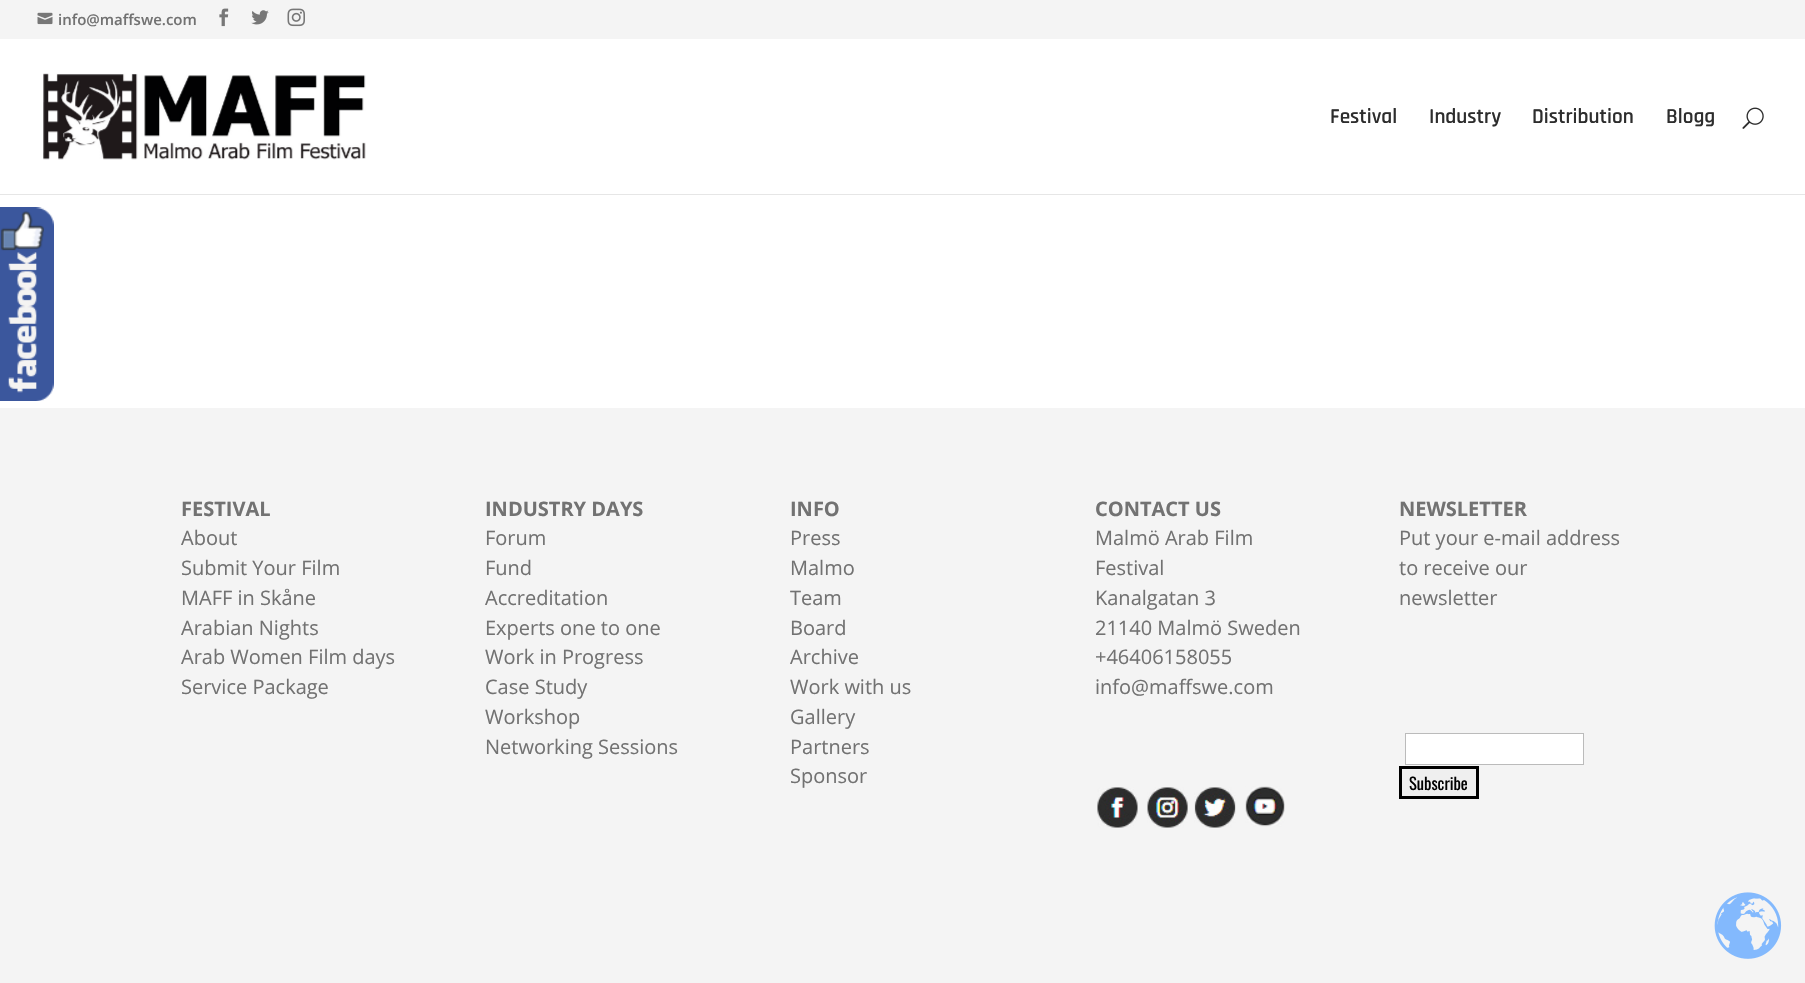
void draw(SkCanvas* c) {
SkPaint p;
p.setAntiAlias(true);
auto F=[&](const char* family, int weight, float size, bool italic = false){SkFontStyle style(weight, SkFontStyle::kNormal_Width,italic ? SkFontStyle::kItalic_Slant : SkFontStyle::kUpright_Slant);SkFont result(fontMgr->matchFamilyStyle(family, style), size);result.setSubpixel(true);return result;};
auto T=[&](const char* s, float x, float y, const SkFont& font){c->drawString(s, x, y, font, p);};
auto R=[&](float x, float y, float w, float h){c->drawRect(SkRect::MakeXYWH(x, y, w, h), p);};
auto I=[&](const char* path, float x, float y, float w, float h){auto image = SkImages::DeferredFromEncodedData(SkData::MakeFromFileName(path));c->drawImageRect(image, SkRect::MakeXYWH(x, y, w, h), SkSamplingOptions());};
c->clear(0xffffffff);
I("1.png",0,207,54,194);
p.setColor(0xfff4f4f4);
R(0,0,1805,39);
I("2.png",37,12,16,13);
auto f1 = F("Open Sans",600,15);
p.setColor(0xff727272);
T("info@maffswe.com",58,25,f1);
I("3.png",219,8,10,19);
I("4.png",251,10,18,15);
I("5.png",287,8,18,19);
p.setColor(0xffe6e6e6);
R(0,194,1805,1);
I("6.png",43,73,323,87);
auto f2 = F("Rajdhani",600,21.25);
p.setColor(0xff2d2d2d);
T("Festival",1330,123,f2);
T("Industry",1429,123,f2);
T("Distribution",1532,123,f2);
T("Blogg",1666,123,f2);
I("7.png",1742,107,22,22);
p.setColor(0xfff4f4f4);
R(0,408,1805,575);
auto f3 = F("Open Sans",700,20);
p.setColor(0xff727272);
T("FESTIVAL",181,516,f3);
auto f4 = F("Open Sans",400,20);
T("About",181,545,f4);
T("Submit Your Film",181,575,f4);
T("MAFF in Skåne",181,605,f4);
T("Arabian Nights",181,635,f4);
T("Arab Women Film days",181,664,f4);
T("Service Package",181,694,f4);
T("INDUSTRY DAYS",485,516,f3);
T("Forum",485,545,f4);
T("Fund",485,575,f4);
T("Accreditation",485,605,f4);
T("Experts one to one",485,635,f4);
T("Work in Progress",485,664,f4);
T("Case Study",485,694,f4);
T("Workshop",485,724,f4);
T("Networking Sessions",485,754,f4);
T("INFO",790,516,f3);
T("Press",790,545,f4);
T("Malmo",790,575,f4);
T("Team",790,605,f4);
T("Board",790,635,f4);
T("Archive",790,664,f4);
T("Work with us",790,694,f4);
T("Gallery",790,724,f4);
T("Partners",790,754,f4);
T("Sponsor",790,783,f4);
T("CONTACT US",1095,516,f3);
T("Malmö Arab Film",1095,545,f4);
T("Festival",1095,575,f4);
T("Kanalgatan 3",1095,605,f4);
T("21140 Malmö Sweden",1095,635,f4);
T("+46406158055",1095,664,f4);
T("info@maffswe.com",1095,694,f4);
I("8.png",1097,787,41,41);
I("9.png",1147,787,41,41);
I("10.png",1194,787,42,41);
I("11.png",1245,786,40,41);
T("NEWSLETTER",1399,516,f3);
T("Put your e-mail address",1399,545,f4);
T("to receive our",1399,575,f4);
T("newsletter",1399,605,f4);
p.setColor(0xffffffff);
c->drawRect(SkRect::MakeXYWH(1405.5,733.5,178,31),p);
p.setStroke(true);
p.setStrokeWidth(1);
p.setColor(0xffbbbbbb);
c->drawRect(SkRect::MakeXYWH(1405.5,733.5,178,31),p);
p.setStroke(false);
p.setColor(0xffefefef);
c->drawRect(SkRect::MakeXYWH(1400.5,767.5,77,30),p);
p.setStroke(true);
p.setStrokeWidth(3);
p.setColor(0xff000000);
c->drawRect(SkRect::MakeXYWH(1400.5,767.5,77,30),p);
auto f5 = F("Oswald",400,16.5);
p.setStroke(false);
T("Subscribe",1409,790,f5);
I("12.png",1714,892,68,67);
}
